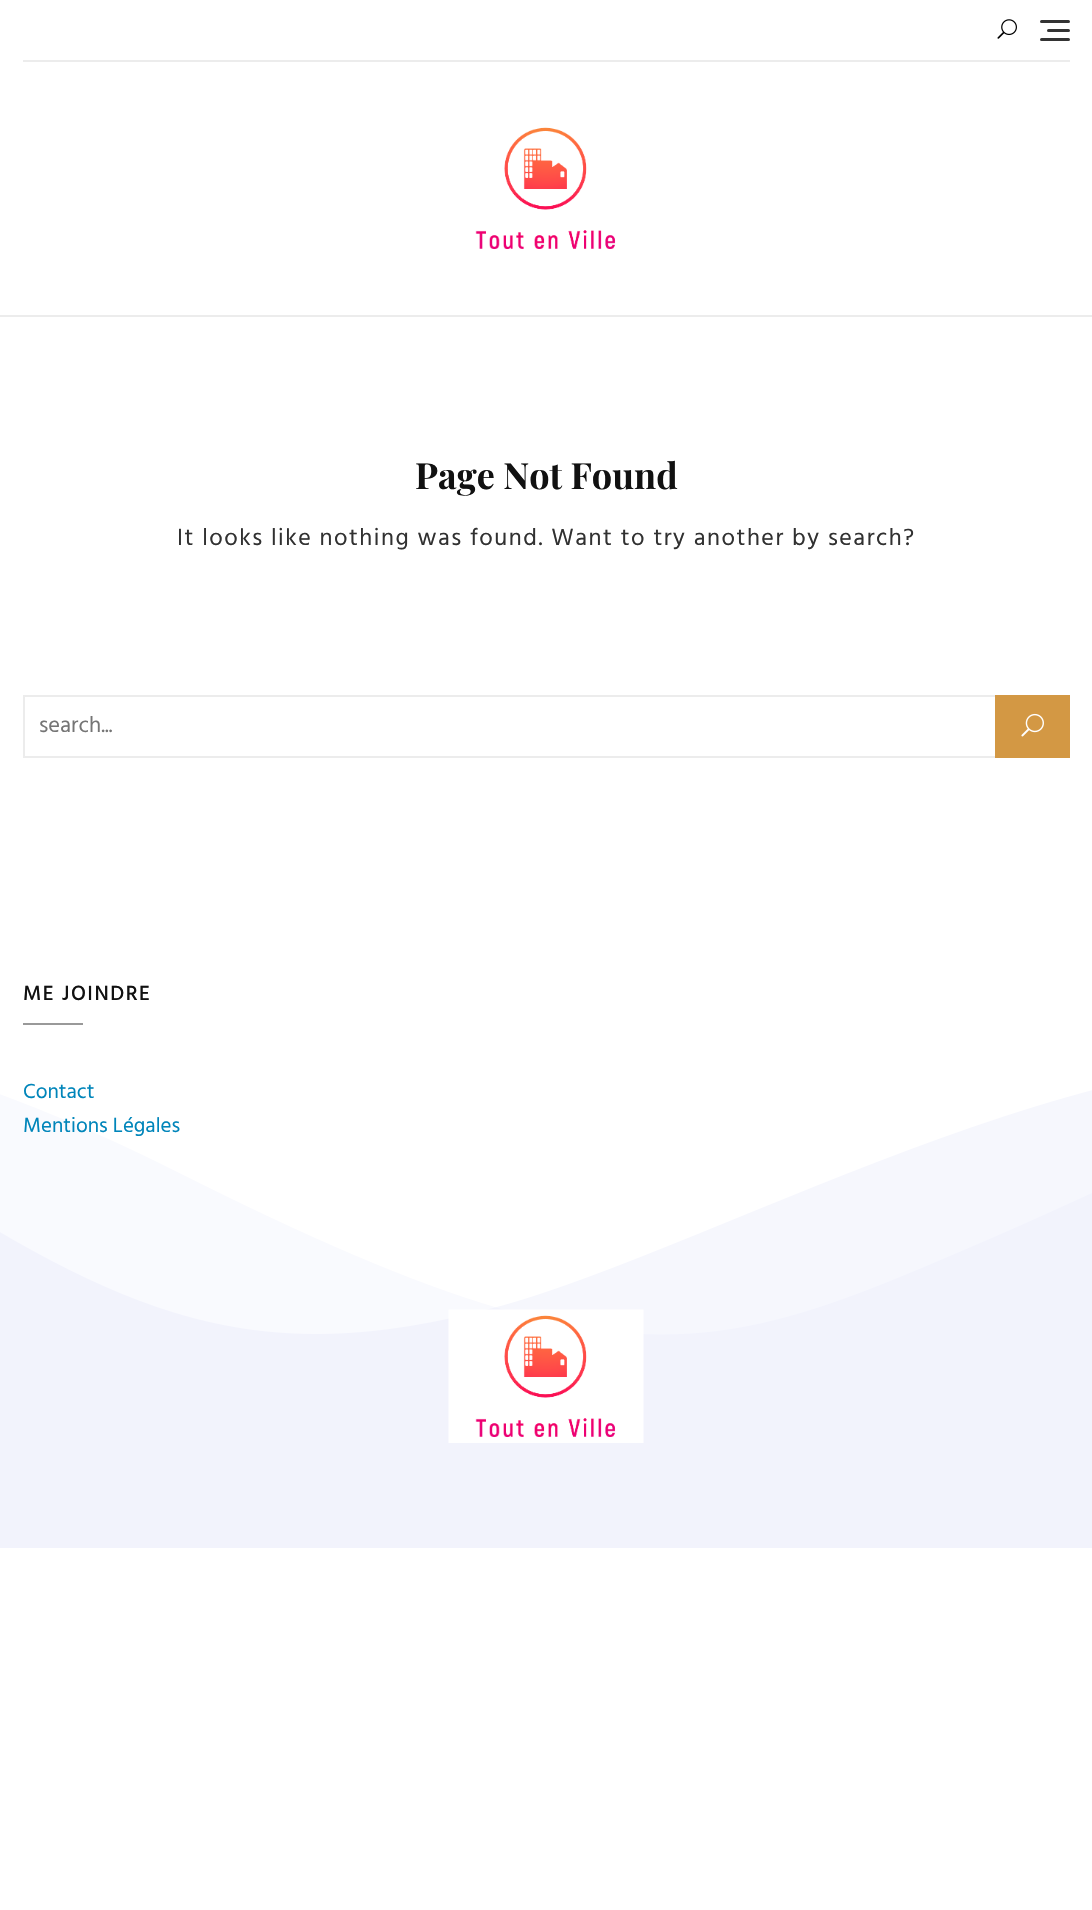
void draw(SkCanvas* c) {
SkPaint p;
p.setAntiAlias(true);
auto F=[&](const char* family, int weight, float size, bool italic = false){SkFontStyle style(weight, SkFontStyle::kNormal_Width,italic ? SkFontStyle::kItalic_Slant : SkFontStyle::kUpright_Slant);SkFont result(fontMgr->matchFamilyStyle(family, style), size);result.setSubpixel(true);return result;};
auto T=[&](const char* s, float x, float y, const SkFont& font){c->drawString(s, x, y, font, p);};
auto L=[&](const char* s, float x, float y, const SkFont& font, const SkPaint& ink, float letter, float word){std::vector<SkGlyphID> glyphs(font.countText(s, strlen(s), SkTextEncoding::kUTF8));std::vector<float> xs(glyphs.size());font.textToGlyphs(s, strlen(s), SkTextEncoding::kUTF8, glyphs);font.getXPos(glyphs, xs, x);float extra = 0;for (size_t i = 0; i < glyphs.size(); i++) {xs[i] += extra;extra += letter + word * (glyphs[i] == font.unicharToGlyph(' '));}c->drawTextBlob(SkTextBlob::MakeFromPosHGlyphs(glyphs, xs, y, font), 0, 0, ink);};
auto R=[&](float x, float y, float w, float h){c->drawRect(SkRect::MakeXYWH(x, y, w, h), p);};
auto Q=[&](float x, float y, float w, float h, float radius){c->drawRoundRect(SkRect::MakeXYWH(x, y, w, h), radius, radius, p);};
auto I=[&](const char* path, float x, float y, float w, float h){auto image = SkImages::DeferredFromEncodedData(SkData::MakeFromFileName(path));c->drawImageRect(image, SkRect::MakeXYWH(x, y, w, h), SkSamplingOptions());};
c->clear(0xffffffff);
p.setColor(0xffececec);
R(23,60,1047,2);
I("1.png",997,19,20,20);
p.setColor(0xff333333);
Q(1047,29,23,3,1.5);
Q(1040,20,30,3,1.5);
Q(1040,38,30,3,1.5);
I("2.png",475,127,141,123);
p.setColor(0xffececec);
R(0,315,1092,2);
auto f1 = F("Playfair Display",700,36);
p.setColor(0xff111111);
T("Page Not Found",415,489,f1);
auto f2 = F("Hind",400,24);
p.setColor(0xff313131);
L("It looks like nothing was found. Want to try another by search?",177,545,f2,p,1.5,0);
p.setStroke(true);
p.setStrokeWidth(2);
p.setColor(0xffececec);
c->drawRect(SkRect::MakeXYWH(24,696,1045,61),p);
auto f3 = F("Hind",400,22.5);
p.setStroke(false);
p.setColor(0xff757575);
T("search...",39,732,f3);
p.setColor(0xffd39844);
R(995,695,75,63);
I("3.png",1021,713,23,24);
auto f4 = F("Hind",500,21);
p.setColor(0xff111111);
L("ME JOINDRE",23,1000,f4,p,1.5,0);
p.setColor(0xff999999);
R(23,1023,60,2);
I("4.png",0,1090,1092,458);
auto f5 = F("Hind",400,21);
p.setColor(0xff0085ba);
T("Contact",23,1098,f5);
T("Mentions Légales",23,1132,f5);
I("5.png",448,1309,196,134);
}
